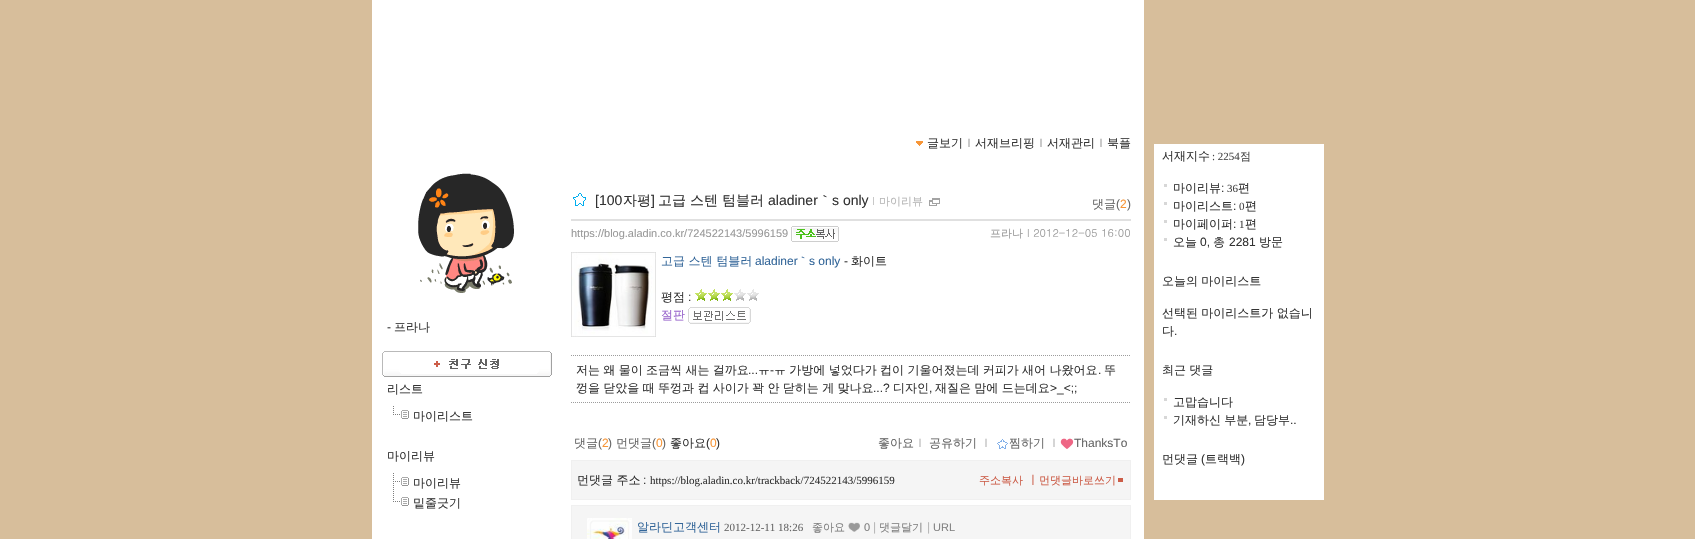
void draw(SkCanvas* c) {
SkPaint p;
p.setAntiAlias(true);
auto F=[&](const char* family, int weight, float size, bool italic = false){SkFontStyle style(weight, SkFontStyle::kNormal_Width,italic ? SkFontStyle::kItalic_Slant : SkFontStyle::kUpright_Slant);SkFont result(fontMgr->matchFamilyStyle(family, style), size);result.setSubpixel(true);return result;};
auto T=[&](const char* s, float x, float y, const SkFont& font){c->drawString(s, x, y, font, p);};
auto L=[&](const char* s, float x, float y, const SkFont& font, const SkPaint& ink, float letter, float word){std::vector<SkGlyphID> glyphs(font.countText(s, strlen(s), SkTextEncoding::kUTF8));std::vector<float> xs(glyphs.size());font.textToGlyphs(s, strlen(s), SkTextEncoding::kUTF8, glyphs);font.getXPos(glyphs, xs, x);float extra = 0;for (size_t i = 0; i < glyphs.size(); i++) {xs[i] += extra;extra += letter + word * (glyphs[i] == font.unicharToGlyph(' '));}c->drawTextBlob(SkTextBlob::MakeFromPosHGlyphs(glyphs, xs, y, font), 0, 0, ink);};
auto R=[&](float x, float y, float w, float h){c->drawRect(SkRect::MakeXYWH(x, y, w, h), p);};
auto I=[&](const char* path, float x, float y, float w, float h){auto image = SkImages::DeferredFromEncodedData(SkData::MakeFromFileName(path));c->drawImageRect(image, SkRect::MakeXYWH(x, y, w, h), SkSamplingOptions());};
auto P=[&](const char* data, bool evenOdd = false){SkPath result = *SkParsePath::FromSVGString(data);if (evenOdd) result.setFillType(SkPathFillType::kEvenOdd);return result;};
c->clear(0xffd7be9b);
p.setColor(0xffffffff);
R(372,0,772,539);
I("1.png",916,141,7,5);
auto f1 = F("WenQuanYi Zen Hei",500,12);
p.setColor(0xff333333);
T("글보기",927,147,f1);
p.setColor(0xffa1a1a1);
T("ｌ",963,147,f1);
p.setColor(0xff333333);
T("서재브리핑",975,147,f1);
p.setColor(0xffa1a1a1);
T("ｌ",1035,147,f1);
p.setColor(0xff333333);
T("서재관리",1047,147,f1);
p.setColor(0xffa1a1a1);
T("ｌ",1095,147,f1);
p.setColor(0xff333333);
T("북플",1107,147,f1);
I("2.png",418,173,96,120);
auto f2 = F("Liberation Sans",400,12);
T("-",387,331,f2);
T("프라나",394,331,f1);
I("3.png",382,351,170,26);
T("리스트",387,393,f1);
I("4.png",393,406,16,13);
T("마이리스트",413,420,f1);
T("마이리뷰",387,460,f1);
I("5.png",393,473,1,19);
I("6.png",395,477,14,9);
T("마이리뷰",413,487,f1);
I("4.png",393,493,16,13);
T("밑줄긋기",413,507,f1);
p.setColor(0xffe0e0e0);
R(571,219,560,2);
I("7.png",573,193,13,13);
auto f3 = F("Liberation Sans",400,14);
p.setColor(0xff333333);
T("[100",595,205,f3);
auto f4 = F("WenQuanYi Zen Hei",500,14);
T("자평",623,205,f4);
T("]",651,205,f3);
T("고급",658,205,f4);
T("스텐",690,205,f4);
T("텀블러",722,205,f4);
T("aladiner",768,205,f3);
T("｀",818,205,f4);
T("s only",832,205,f3);
auto f5 = F("Dotum",400,11);
p.setColor(0xffb6b6b6);
T("ｌ",868,205,f5);
auto f6 = F("WenQuanYi Zen Hei",500,11);
T("마이리뷰",879,205,f6);
I("8.png",929,198,11,8);
p.setColor(0xff666666);
T("댓글",1092,208,f1);
T("(",1116,208,f2);
p.setColor(0xfff79638);
T("2",1120,208,f2);
p.setColor(0xff666666);
T(")",1127,208,f2);
auto f7 = F("Liberation Sans",400,11);
p.setColor(0xff999999);
T("https://blog.aladin.co.kr/724522143/5996159",571,237,f7);
I("9.png",791,226,48,16);
T("프라나",990,237,f6);
T("l 2012-12-05 16:00",1027,237,f5);
I("10.png",571,252,85,85);
p.setColor(0xff336699);
T("고급 스텐 텀블러",661,265,f1);
T("aladiner",755,265,f2);
T("｀",797,265,f1);
T("s only",809,265,f2);
p.setColor(0xff333333);
T("-",844,265,f2);
T("화이트",851,265,f1);
T("평점",661,301,f1);
T(":",688,301,f2);
I("11.png",695,289,64,12);
p.setColor(0xff9966cc);
T("절판",661,319,f1);
I("12.png",688,307,63,17);
p.setStroke(true);
p.setStrokeWidth(1);
p.setColor(0xff9c9c9c);
p.setPathEffect(SkDashPathEffect::Make({{1,1}}, 0));
c->drawPath(P("M571 355.5h560"),p);
p.setPathEffect(nullptr);
p.setPathEffect(SkDashPathEffect::Make({{1,1}}, 0));
c->drawPath(P("M571 402.5h560"),p);
p.setPathEffect(nullptr);
p.setStroke(false);
p.setColor(0xff333333);
L("저는 왜 물이 조금씩 새는 걸까요",576,374,f1,p,0,-.25);
T("ㅠ",758,374,f1);
T("-",770,374,f2);
L("ㅠ 가방에 넣었다가 컵이 기울어졌는데 커피가 새어 나왔어요",774,374,f1,p,0,-.25);
T("뚜",1104,374,f1);
T("...",748,374,f2);
T(".",1098,374,f2);
L("껑을 닫았을 때 뚜껑과 컵 사이가 꽉 안 닫히는 게 맞나요",576,392,f1,p,0,-.25);
T("...?",873,392,f2);
T("디자인",893,392,f1);
T(",",929,392,f2);
L("재질은 맘에 드는데요",935,392,f1,p,0,-.25);
T(">_<;;",1050,392,f2);
p.setColor(0xff666666);
T("댓글",574,447,f1);
T("(",598,447,f2);
p.setColor(0xfff79638);
T("2",602,447,f2);
p.setColor(0xff666666);
T(")",608,447,f2);
T("먼댓글",616,447,f1);
T("(",652,447,f2);
p.setColor(0xfff79638);
T("0",656,447,f2);
p.setColor(0xff666666);
T(")",662,447,f2);
p.setColor(0xff333333);
T("좋아요",670,447,f1);
T("(",706,447,f2);
p.setColor(0xfff79638);
T("0",710,447,f2);
p.setColor(0xff333333);
T(")",716,447,f2);
p.setColor(0xff666666);
T("좋아요",878,447,f1);
p.setColor(0xffb6b6b6);
T("ｌ",914,447,f1);
p.setColor(0xff666666);
T("공유하기",929,447,f1);
p.setColor(0xffb6b6b6);
T("ｌ",980,447,f1);
I("13.png",997,439,11,10);
p.setColor(0xff666666);
T("찜하기",1009,447,f1);
p.setColor(0xffb6b6b6);
T("ｌ",1048,447,f1);
I("14.png",1060,438,14,11);
p.setColor(0xff666666);
T("ThanksTo",1074,447,f2);
p.setColor(0xfff5f5f5);
c->drawRect(SkRect::MakeXYWH(571.5,460.5,559,39),p);
p.setStroke(true);
p.setColor(0xfff0f0f0);
c->drawRect(SkRect::MakeXYWH(571.5,460.5,559,39),p);
p.setStroke(false);
p.setColor(0xff333333);
T("먼댓글 주소",577,484,f1);
T(":",643,484,f2);
auto f8 = F("Liberation Serif",400,11);
T("https://blog.aladin.co.kr/trackback/724522143/5996159",650,484,f8);
p.setColor(0xffcc5d48);
T("주소복사",979,484,f6);
T("ㅣ",1027,484,f1);
T("먼댓글바로쓰기",1039,484,f6);
R(1118,478,5,4);
p.setColor(0xfff5f5f5);
c->drawRect(SkRect::MakeXYWH(571.5,505.5,559,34),p);
p.setStroke(true);
p.setColor(0xfff0f0f0);
c->drawRect(SkRect::MakeXYWH(571.5,505.5,559,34),p);
I("15.png",587,518,45,21);
p.setStroke(false);
p.setColor(0xff336699);
T("알라딘고객센터",637,531,f1);
p.setColor(0xff666666);
T("2012-12-11 18:26",724,531,f8);
p.setColor(0xff818181);
T("좋아요",812,531,f6);
I("16.png",848,522,12,10);
T("0",864,531,f7);
p.setColor(0xffb6b6b6);
T("|",873,531,f2);
p.setColor(0xff818181);
T("댓글달기",879,531,f6);
p.setColor(0xffb6b6b6);
T("|",927,531,f2);
p.setColor(0xff818181);
T("URL",933,531,f7);
p.setColor(0xffffffff);
R(1154,144,170,356);
p.setColor(0xff333333);
T("서재지수",1162,160,f1);
p.setColor(0xff454545);
T(": 2254",1212,160,f8);
T("점",1240,160,f6);
p.setColor(0xffd7d7d7);
R(1164,184,3,3);
p.setColor(0xff333333);
T("마이리뷰",1173,192,f1);
T(":",1221,192,f2);
p.setColor(0xff454545);
T("36",1227,192,f8);
p.setColor(0xff333333);
T("편",1238,192,f1);
p.setColor(0xffd7d7d7);
R(1164,202,3,3);
p.setColor(0xff333333);
T("마이리스트",1173,210,f1);
T(":",1233,210,f2);
p.setColor(0xff454545);
T("0",1239,210,f8);
p.setColor(0xff333333);
T("편",1245,210,f1);
p.setColor(0xffd7d7d7);
R(1164,220,3,3);
p.setColor(0xff333333);
T("마이페이퍼",1173,228,f1);
T(":",1233,228,f2);
p.setColor(0xff454545);
T("1",1239,228,f8);
p.setColor(0xff333333);
T("편",1245,228,f1);
p.setColor(0xffd7d7d7);
R(1164,238,3,3);
p.setColor(0xff333333);
T("오늘",1173,246,f1);
T("0,",1200,246,f2);
T("총",1213,246,f1);
T("2281",1229,246,f2);
T("방문",1259,246,f1);
L("오늘의 마이리스트",1162,285,f1,p,0,-.25);
L("선택된 마이리스트가 없습니",1162,317,f1,p,0,-.25);
T("다",1162,335,f1);
T(".",1174,335,f2);
L("최근 댓글",1162,374,f1,p,0,-.25);
p.setColor(0xffd7d7d7);
R(1164,398,3,3);
p.setColor(0xff333333);
T("고맙습니다",1173,406,f1);
p.setColor(0xffd7d7d7);
R(1164,416,3,3);
p.setColor(0xff333333);
L("기재하신 부분",1173,424,f1,p,0,-.25);
T(",",1248,424,f2);
T("담당부",1254,424,f1);
T("..",1290,424,f2);
T("먼댓글",1162,463,f1);
T("(",1201,463,f2);
T("트랙백",1205,463,f1);
T(")",1241,463,f2);
}
